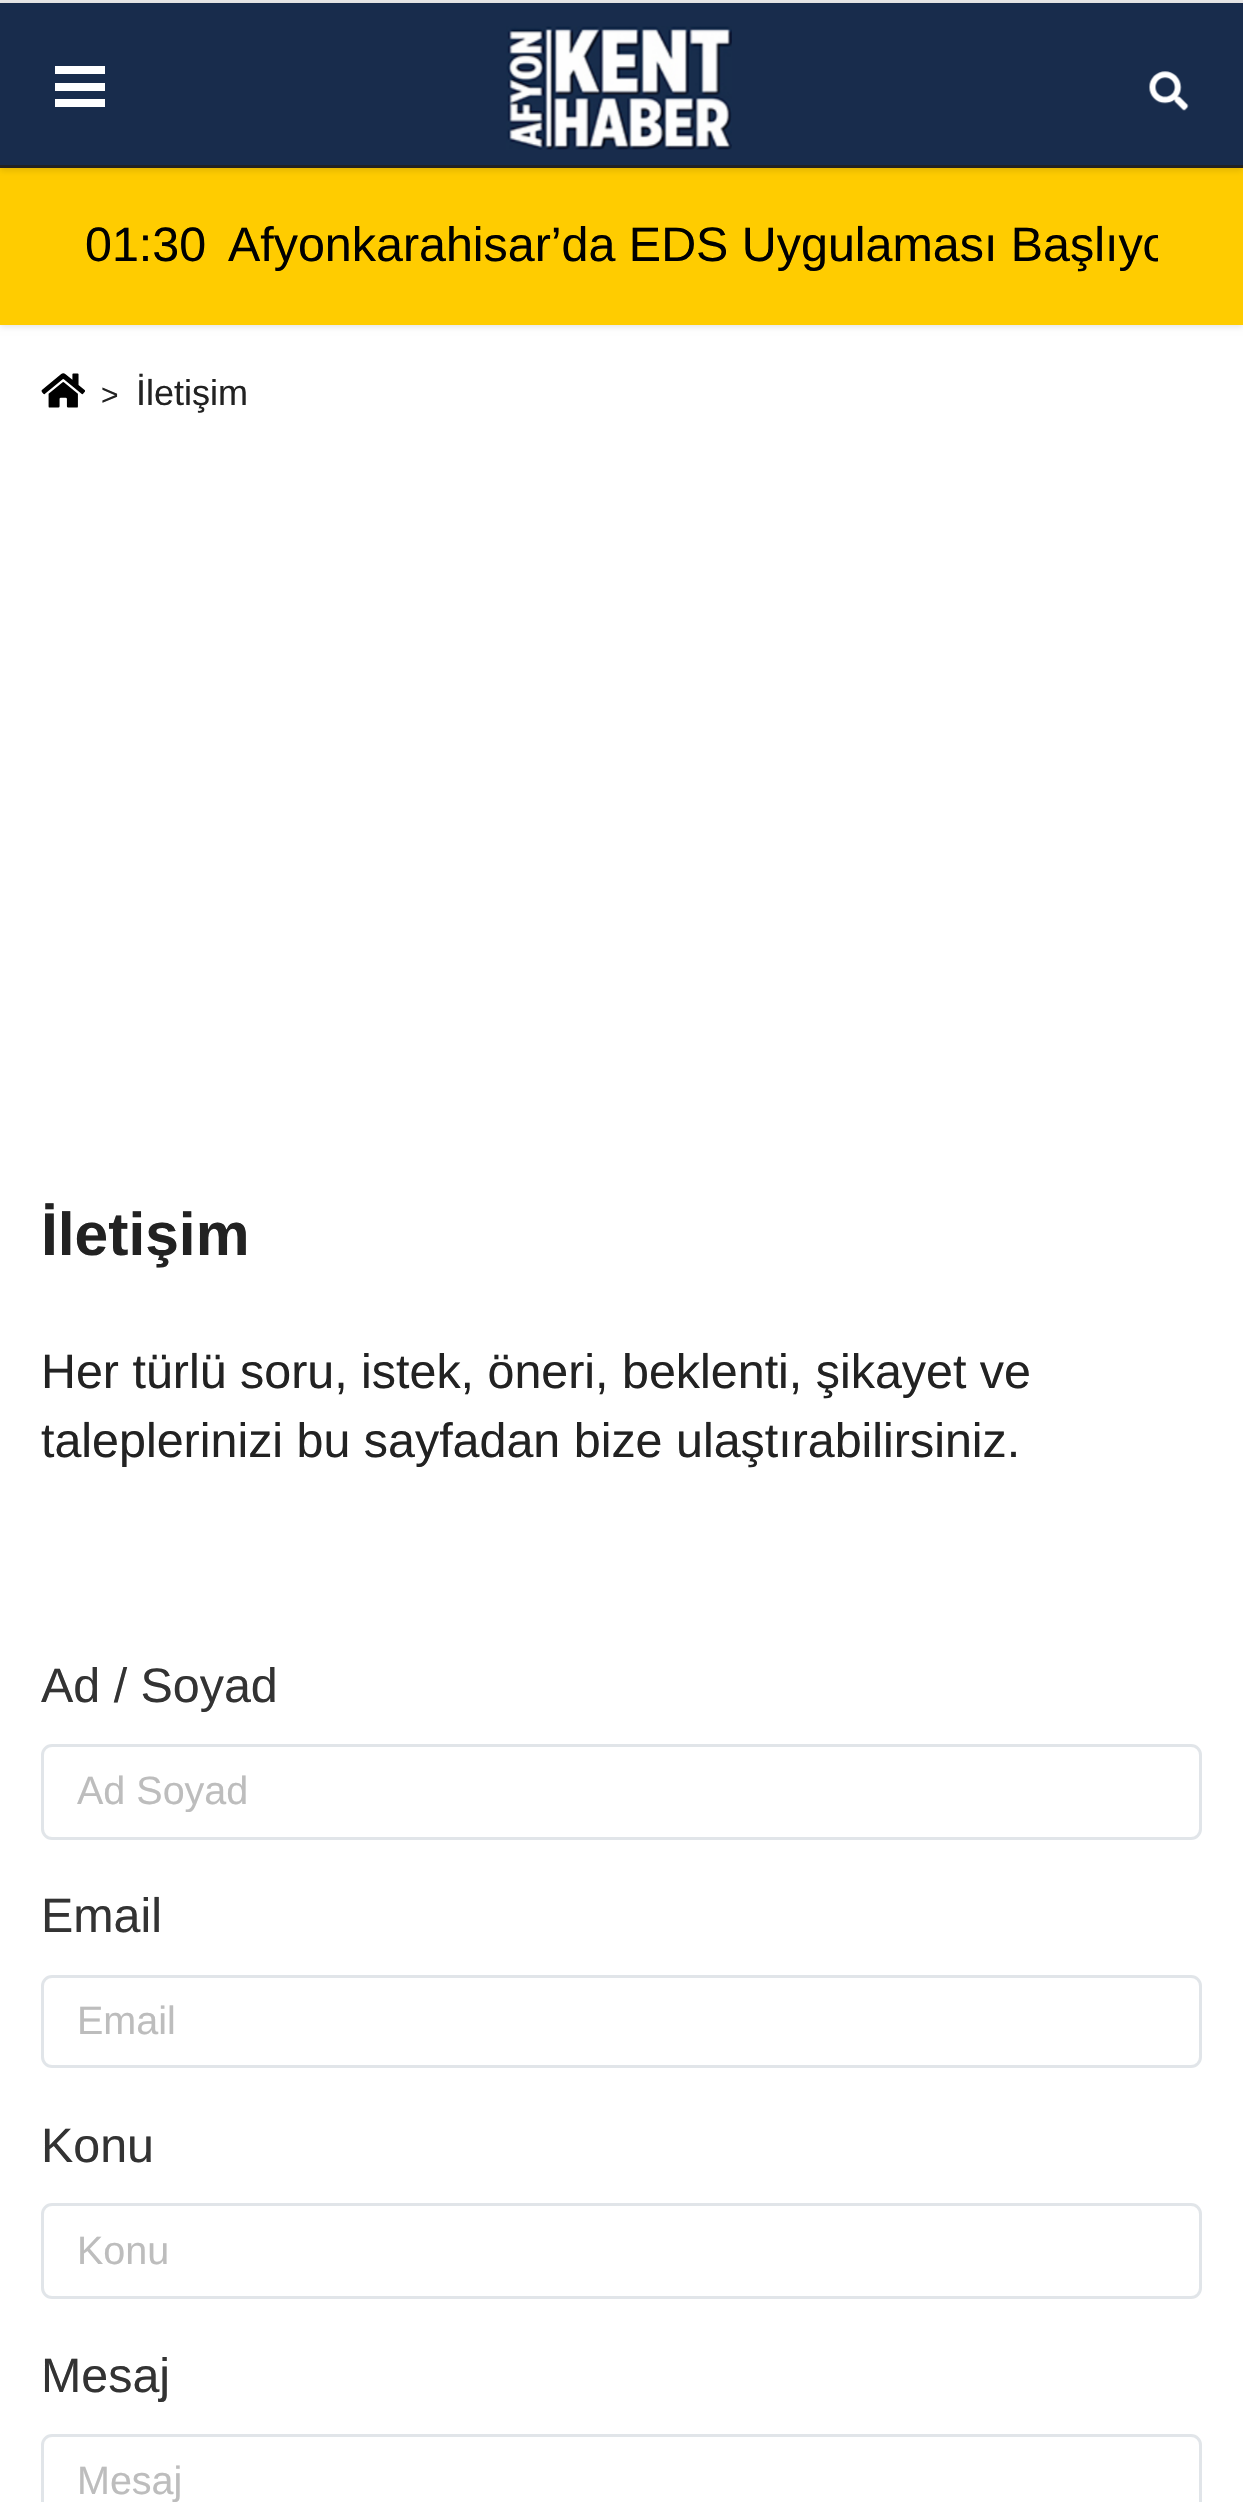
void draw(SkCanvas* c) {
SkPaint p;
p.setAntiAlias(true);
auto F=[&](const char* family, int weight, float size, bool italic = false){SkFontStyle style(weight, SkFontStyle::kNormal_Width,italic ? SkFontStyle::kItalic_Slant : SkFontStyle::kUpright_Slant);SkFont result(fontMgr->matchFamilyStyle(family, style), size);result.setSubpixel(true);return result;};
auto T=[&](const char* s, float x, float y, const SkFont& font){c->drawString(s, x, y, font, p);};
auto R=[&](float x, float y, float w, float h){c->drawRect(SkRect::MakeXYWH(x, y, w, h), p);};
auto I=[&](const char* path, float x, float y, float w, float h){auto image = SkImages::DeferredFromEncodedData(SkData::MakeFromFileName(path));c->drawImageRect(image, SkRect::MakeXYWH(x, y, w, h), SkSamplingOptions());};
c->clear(0xffffffff);
p.setColor(0xffe6e6e6);
R(0,0,1243,3);
p.setColor(0x1a000000);
p.setMaskFilter(SkMaskFilter::MakeBlur(kNormal_SkBlurStyle, 3));
c->drawRect(SkRect::MakeXYWH(0,171,1243,156),p);
p.setMaskFilter(nullptr);
p.setColor(0xffffcc00);
R(0,168,1243,157);
p.setColor(0x1a000000);
p.setMaskFilter(SkMaskFilter::MakeBlur(kNormal_SkBlurStyle, 3));
c->drawRect(SkRect::MakeXYWH(0,6,1243,165),p);
p.setMaskFilter(nullptr);
p.setColor(0xff182c4c);
R(0,3,1243,162);
p.setColor(0xff222222);
R(0,165,1243,3);
p.setColor(0xffffffff);
R(55,66,50,8);
R(55,83,50,8);
R(55,99,50,8);
I("1.png",506,26,226,124);
I("2.png",1149,71,40,40);
auto f1 = F("Liberation Sans",400,48.4);
p.setColor(0xff000000);
T("01:30",85,261,f1);
c->save();
c->clipRect(SkRect::MakeXYWH(85,212,1073,69));
T("Afyonkarahisar’da EDS Uygulaması Başlıyo",228,261,f1);
c->restore();
I("3.png",41,373,44,35);
auto f2 = F("Liberation Sans",400,30);
p.setColor(0xff222222);
T(">",101,405,f2);
auto f3 = F("Liberation Sans",400,36);
T("İletişim",136,405,f3);
auto f4 = F("Liberation Sans",700,60.5);
T("İletişim",41,1255,f4);
T("Her türlü soru, istek, öneri, beklenti, şikayet ve",41,1388,f1);
T("taleplerinizi bu sayfadan bize ulaştırabilirsiniz.",41,1457,f1);
p.setColor(0xff333333);
T("Ad / Soyad",41,1702,f1);
p.setStroke(true);
p.setStrokeWidth(3);
p.setColor(0xffe1e5e9);
c->drawRoundRect(SkRect::MakeXYWH(42.5,1745.5,1158,93),9.5,9.5,p);
c->save();
c->clipRect(SkRect::MakeXYWH(77,1768,1089,44));
auto f5 = F("Liberation Sans",400,39.5);
p.setStroke(false);
p.setColor(0xffbdbdbd);
T("Ad Soyad",77,1804,f5);
c->restore();
p.setColor(0xff333333);
T("Email",41,1932,f1);
p.setStroke(true);
p.setColor(0xffe1e5e9);
c->drawRoundRect(SkRect::MakeXYWH(42.5,1976.5,1158,90),9.5,9.5,p);
p.setStroke(false);
p.setColor(0xffbdbdbd);
T("Email",77,2034,f5);
p.setColor(0xff333333);
T("Konu",41,2162,f1);
p.setStroke(true);
p.setColor(0xffe1e5e9);
c->drawRoundRect(SkRect::MakeXYWH(42.5,2204.5,1158,93),9.5,9.5,p);
p.setStroke(false);
p.setColor(0xffbdbdbd);
T("Konu",77,2264,f5);
p.setColor(0xff333333);
T("Mesaj",41,2392,f1);
p.setStroke(true);
p.setColor(0xffe1e5e9);
c->drawRoundRect(SkRect::MakeXYWH(42.5,2435.5,1158,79),9.5,9.5,p);
p.setStroke(false);
p.setColor(0xffbdbdbd);
T("Mesaj",77,2494,f5);
}
